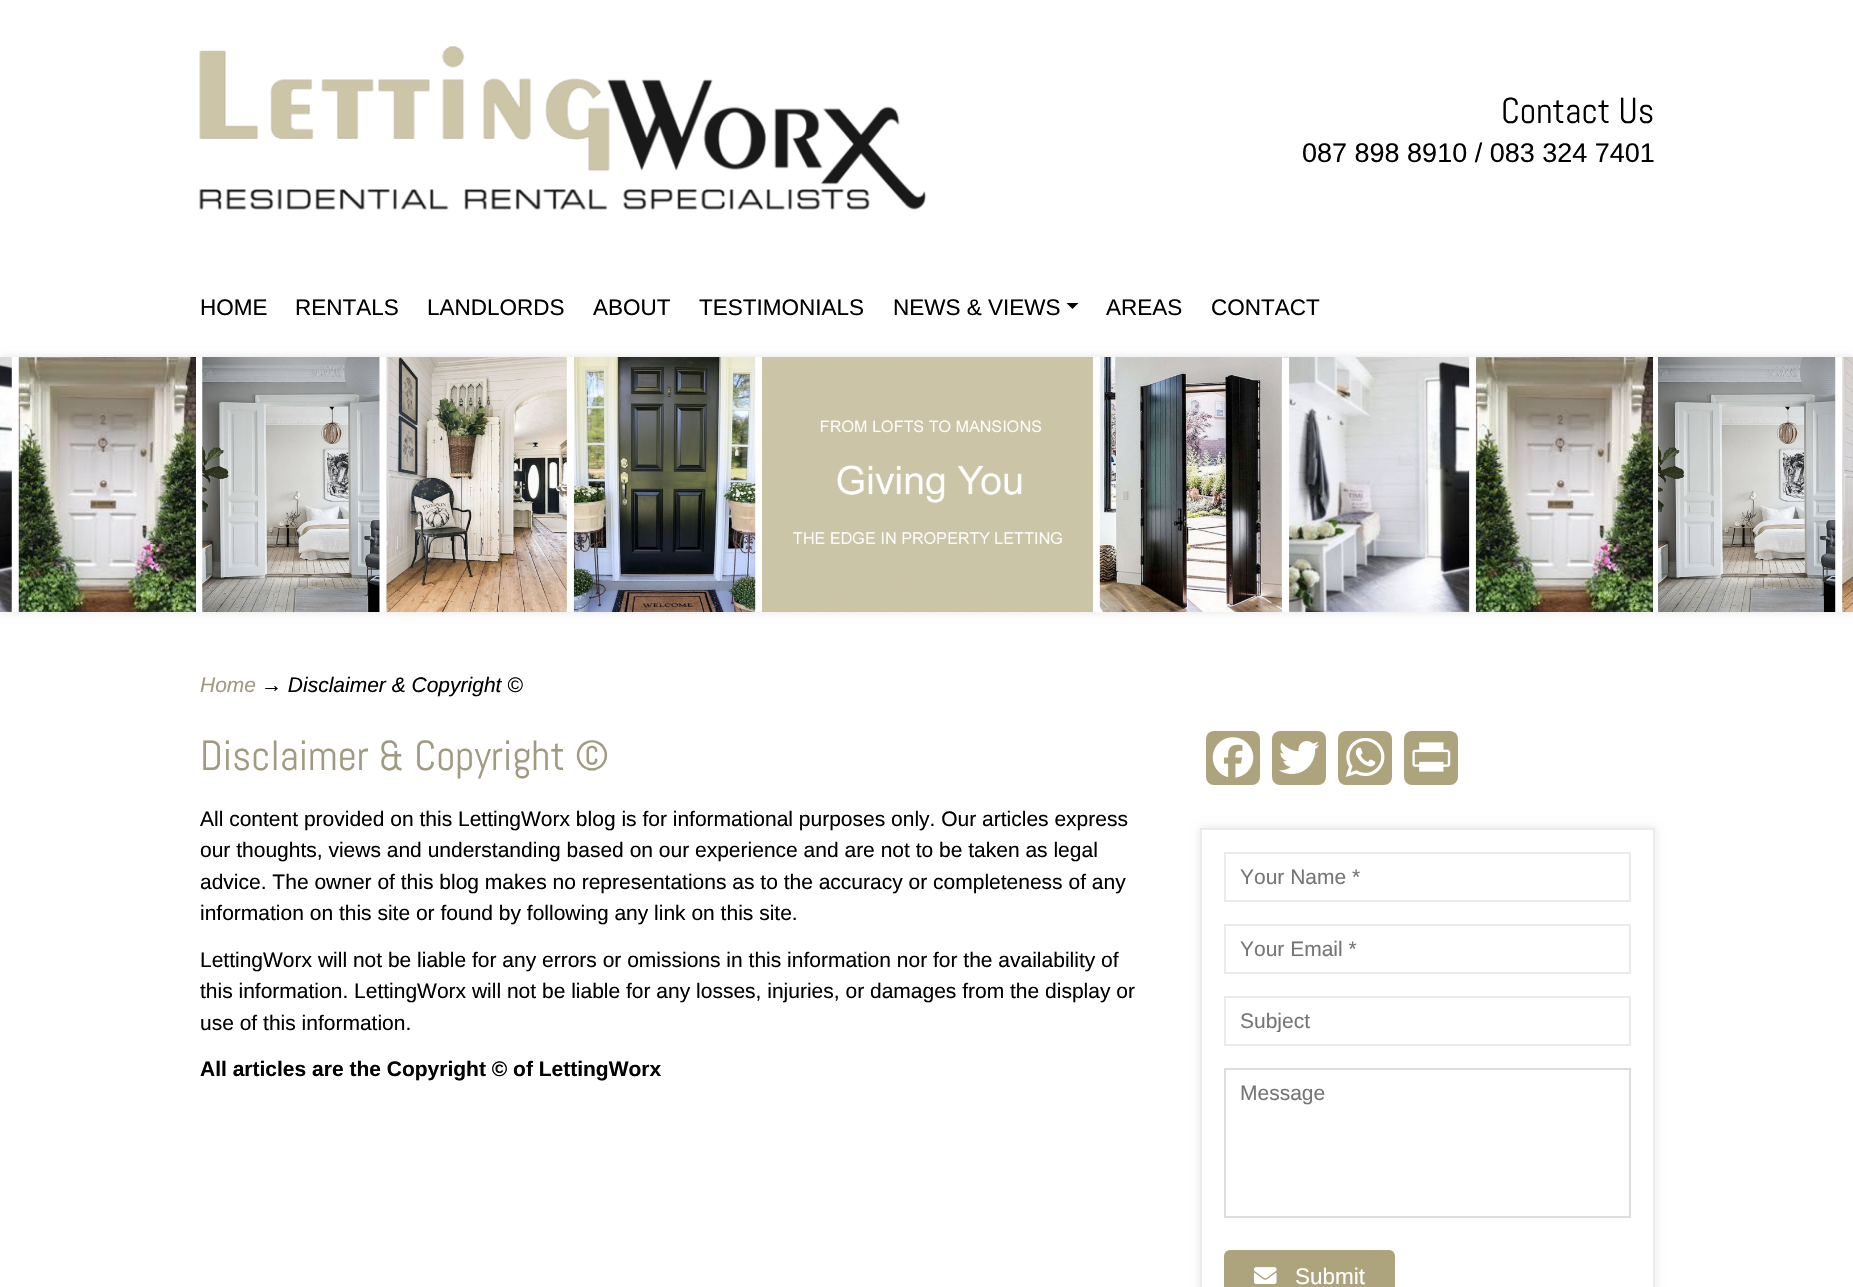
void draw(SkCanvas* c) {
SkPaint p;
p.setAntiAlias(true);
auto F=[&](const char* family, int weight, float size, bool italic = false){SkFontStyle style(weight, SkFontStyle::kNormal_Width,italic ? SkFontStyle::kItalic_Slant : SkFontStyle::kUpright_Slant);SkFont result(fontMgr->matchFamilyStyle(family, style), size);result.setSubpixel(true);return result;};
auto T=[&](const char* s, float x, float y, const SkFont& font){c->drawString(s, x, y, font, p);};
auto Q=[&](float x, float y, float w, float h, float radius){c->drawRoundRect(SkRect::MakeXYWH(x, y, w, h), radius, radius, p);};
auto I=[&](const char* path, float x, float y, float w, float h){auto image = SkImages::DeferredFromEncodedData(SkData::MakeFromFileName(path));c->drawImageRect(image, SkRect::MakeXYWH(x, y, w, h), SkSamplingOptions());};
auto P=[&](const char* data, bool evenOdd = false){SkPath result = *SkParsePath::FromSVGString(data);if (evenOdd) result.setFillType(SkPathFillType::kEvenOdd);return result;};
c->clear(0xffffffff);
I("1.png",199,46,727,164);
auto f1 = F("Abel",400,36);
p.setColor(0xff000000);
T("Contact Us",1501,123,f1);
auto f2 = F("Liberation Sans",400,27);
T("087 898 8910 / 083 324 7401",1302,162,f2);
auto f3 = F("Liberation Sans",400,22.5);
T("HOME",200,315,f3);
T("RENTALS",295,315,f3);
T("LANDLORDS",427,315,f3);
T("ABOUT",593,315,f3);
T("TESTIMONIALS",699,315,f3);
T("NEWS & VIEWS",893,315,f3);
c->drawPath(P("M1066.5 303h12l-6 6z"),p);
T("AREAS",1106,315,f3);
T("CONTACT",1211,315,f3);
p.setColor(0x1a000000);
p.setMaskFilter(SkMaskFilter::MakeBlur(kNormal_SkBlurStyle, 4));
c->drawRect(SkRect::MakeXYWH(0,357,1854,255),p);
p.setMaskFilter(nullptr);
I("2.png",0,357,1853,255);
I("3.png",201,357,1452,255);
auto f4 = F("Liberation Sans",400,21,true);
p.setColor(0xffa09a82);
T("Home",200,692,f4);
p.setColor(0xff000000);
T("→ Disclaimer & Copyright ©",261,692,f4);
auto f5 = F("Abel",400,42);
p.setColor(0xffa09a82);
T("Disclaimer & Copyright ©",200,770,f5);
auto f6 = F("Liberation Sans",400,21);
p.setColor(0xff000000);
T("All content provided on this LettingWorx blog is for informational purposes only. Our articles express",200,826,f6);
T("our thoughts, views and understanding based on our experience and are not to be taken as legal",200,857,f6);
T("advice. The owner of this blog makes no representations as to the accuracy or completeness of any",200,889,f6);
T("information on this site or found by following any link on this site.",200,920,f6);
T("LettingWorx will not be liable for any errors or omissions in this information nor for the availability of",200,967,f6);
T("this information. LettingWorx will not be liable for any losses, injuries, or damages from the display or",200,998,f6);
T("use of this information.",200,1030,f6);
auto f7 = F("Liberation Sans",700,21);
T("All articles are the Copyright © of LettingWorx",200,1076,f7);
p.setColor(0xffada47d);
Q(1206,731,54,54,8);
I("4.png",1212,737,42,41);
Q(1272,731,54,54,8);
I("5.png",1279,741,40,33);
Q(1338,731,54,54,8);
I("6.png",1345,737,40,40);
Q(1404,731,54,54,8);
I("7.png",1412,742,39,30);
p.setColor(0x1a000000);
p.setMaskFilter(SkMaskFilter::MakeBlur(kNormal_SkBlurStyle, 4));
c->drawRect(SkRect::MakeXYWH(1200,828,455,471),p);
p.setMaskFilter(nullptr);
p.setColor(0xffffffff);
c->drawRect(SkRect::MakeXYWH(1201,829,453,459),p);
p.setStroke(true);
p.setStrokeWidth(2);
p.setColor(0xffeceaea);
c->drawRect(SkRect::MakeXYWH(1201,829,453,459),p);
c->drawRect(SkRect::MakeXYWH(1225,853,405,48),p);
p.setStroke(false);
p.setColor(0xff757575);
T("Your Name *",1240,884,f6);
p.setStroke(true);
p.setColor(0xffeceaea);
c->drawRect(SkRect::MakeXYWH(1225,925,405,48),p);
p.setStroke(false);
p.setColor(0xff757575);
T("Your Email *",1240,956,f6);
p.setStroke(true);
p.setColor(0xffeceaea);
c->drawRect(SkRect::MakeXYWH(1225,997,405,48),p);
c->save();
c->clipRect(SkRect::MakeXYWH(1241,1008,373,24));
p.setStroke(false);
p.setColor(0xff757575);
T("Subject",1240,1028,f6);
c->restore();
p.setStroke(true);
p.setColor(0xffdddddd);
c->drawRect(SkRect::MakeXYWH(1225,1069,405,148),p);
p.setStroke(false);
p.setColor(0xff757575);
T("Message",1240,1100,f6);
p.setColor(0xffada47d);
Q(1224,1250,171,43,6);
I("8.png",1254,1267,23,17);
p.setColor(0xffffffff);
T("Submit",1295,1284,f3);
}
